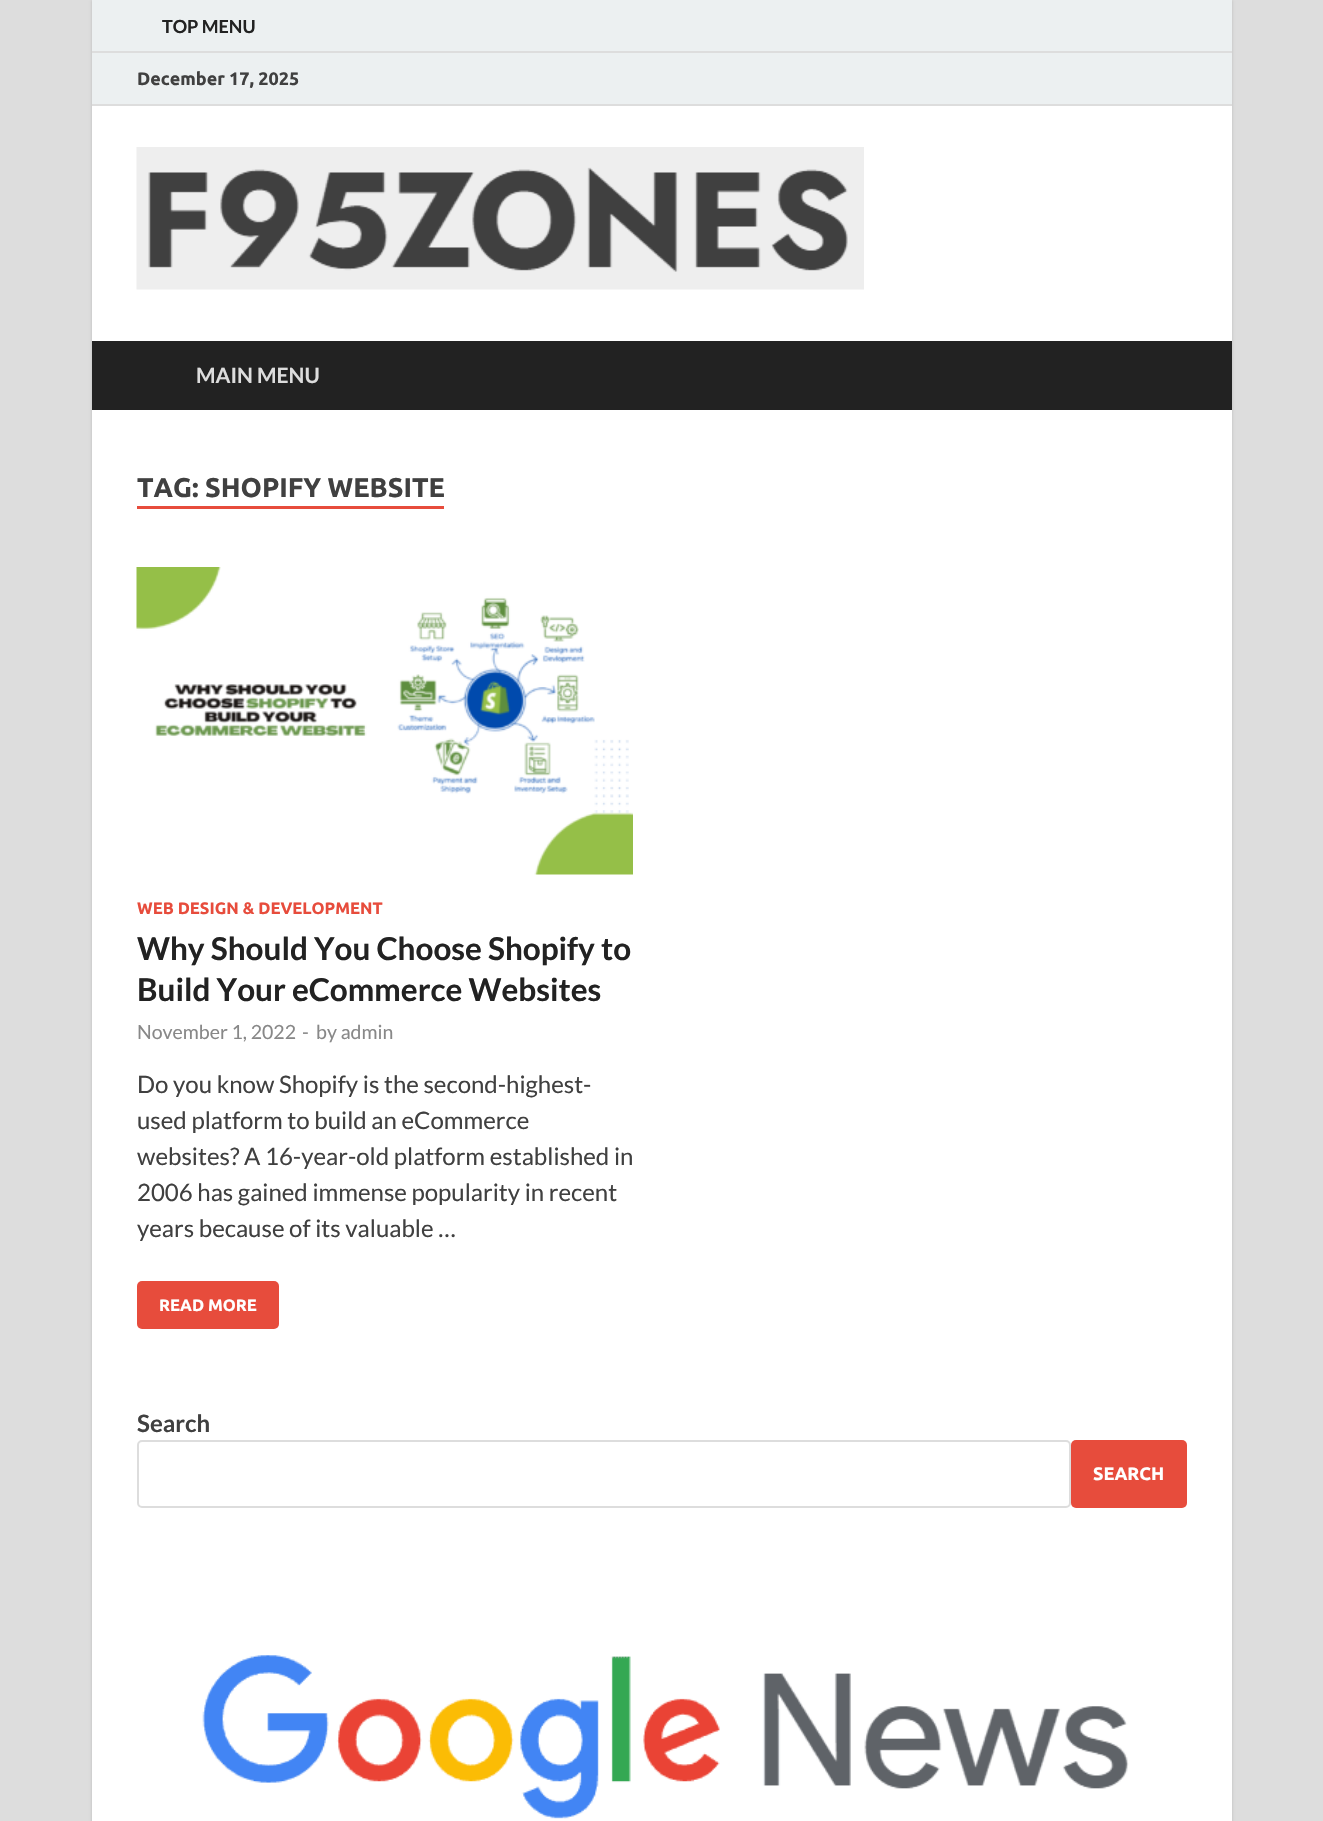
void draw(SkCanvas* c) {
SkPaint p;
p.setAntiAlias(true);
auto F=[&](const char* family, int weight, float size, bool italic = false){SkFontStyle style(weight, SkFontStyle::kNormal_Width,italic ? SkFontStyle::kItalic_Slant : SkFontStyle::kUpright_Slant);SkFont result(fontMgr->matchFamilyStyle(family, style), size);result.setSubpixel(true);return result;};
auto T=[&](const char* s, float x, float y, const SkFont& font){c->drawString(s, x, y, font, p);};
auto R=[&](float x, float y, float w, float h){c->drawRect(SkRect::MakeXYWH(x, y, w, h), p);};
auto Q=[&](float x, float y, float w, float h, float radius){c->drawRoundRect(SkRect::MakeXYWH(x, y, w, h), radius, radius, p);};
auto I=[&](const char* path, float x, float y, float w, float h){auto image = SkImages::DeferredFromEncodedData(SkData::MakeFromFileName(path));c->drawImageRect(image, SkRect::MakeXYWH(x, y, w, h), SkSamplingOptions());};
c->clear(0xffdddddd);
p.setColor(0xffbbbbbb);
p.setMaskFilter(SkMaskFilter::MakeBlur(kNormal_SkBlurStyle, 1.5));
c->drawRect(SkRect::MakeXYWH(92,0,1140,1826),p);
p.setMaskFilter(nullptr);
p.setColor(0xffffffff);
R(92,106,1140,1715);
p.setColor(0xffecf0f1);
R(92,0,1140,51);
p.setColor(0xffdddddd);
R(92,51,1140,2);
auto f1 = F("Lato",700,18);
p.setColor(0xff222222);
T("TOP MENU",162,33,f1);
p.setColor(0xffecf0f1);
R(92,53,1140,51);
p.setColor(0xffdddddd);
R(92,104,1140,2);
auto f2 = F("Ubuntu",700,18);
p.setColor(0xff404040);
T("December 17, 2025",137,85,f2);
I("1.png",136,147,728,143);
p.setColor(0xff222222);
R(92,341,1140,69);
auto f3 = F("Lato",700,21);
p.setColor(0xffdddddd);
T("MAIN MENU",196,383,f3);
auto f4 = F("Ubuntu",700,27);
p.setColor(0xff404040);
T("TAG: SHOPIFY WEBSITE",137,497,f4);
p.setColor(0xffe74c3c);
R(137,506,307,3);
I("2.png",136,567,497,308);
auto f5 = F("Ubuntu",700,16.5);
T("WEB DESIGN & DEVELOPMENT",137,914,f5);
auto f6 = F("Lato",700,31.5);
p.setColor(0xff222222);
T("Why Should You Choose Shopify to",137,960,f6);
T("Build Your eCommerce Websites",137,1001,f6);
auto f7 = F("Lato",400,19.5);
p.setColor(0xff888888);
T("November 1, 2022",137,1039,f7);
T("-",302,1039,f7);
T("by admin",316,1039,f7);
auto f8 = F("Lato",400,24);
p.setColor(0xff404040);
T("Do you know Shopify is the second-highest-",137,1093,f8);
T("used platform to build an eCommerce",137,1129,f8);
T("websites? A 16-year-old platform established in",137,1165,f8);
T("2006 has gained immense popularity in recent",137,1201,f8);
T("years because of its valuable …",137,1237,f8);
p.setColor(0xffe74c3c);
Q(137,1281,142,48,5);
p.setColor(0xffffffff);
T("READ MORE",159,1311,f5);
auto f9 = F("Lato",700,24);
p.setColor(0xff404040);
T("Search",137,1432,f9);
p.setStroke(true);
p.setStrokeWidth(2);
p.setColor(0xffdddddd);
c->drawRoundRect(SkRect::MakeXYWH(138,1441,932,66),4,4,p);
p.setStroke(false);
p.setColor(0xffe74c3c);
Q(1071,1440,116,68,5);
p.setColor(0xffffffff);
T("SEARCH",1093,1480,f2);
I("3.png",202,1655,927,164);
}
